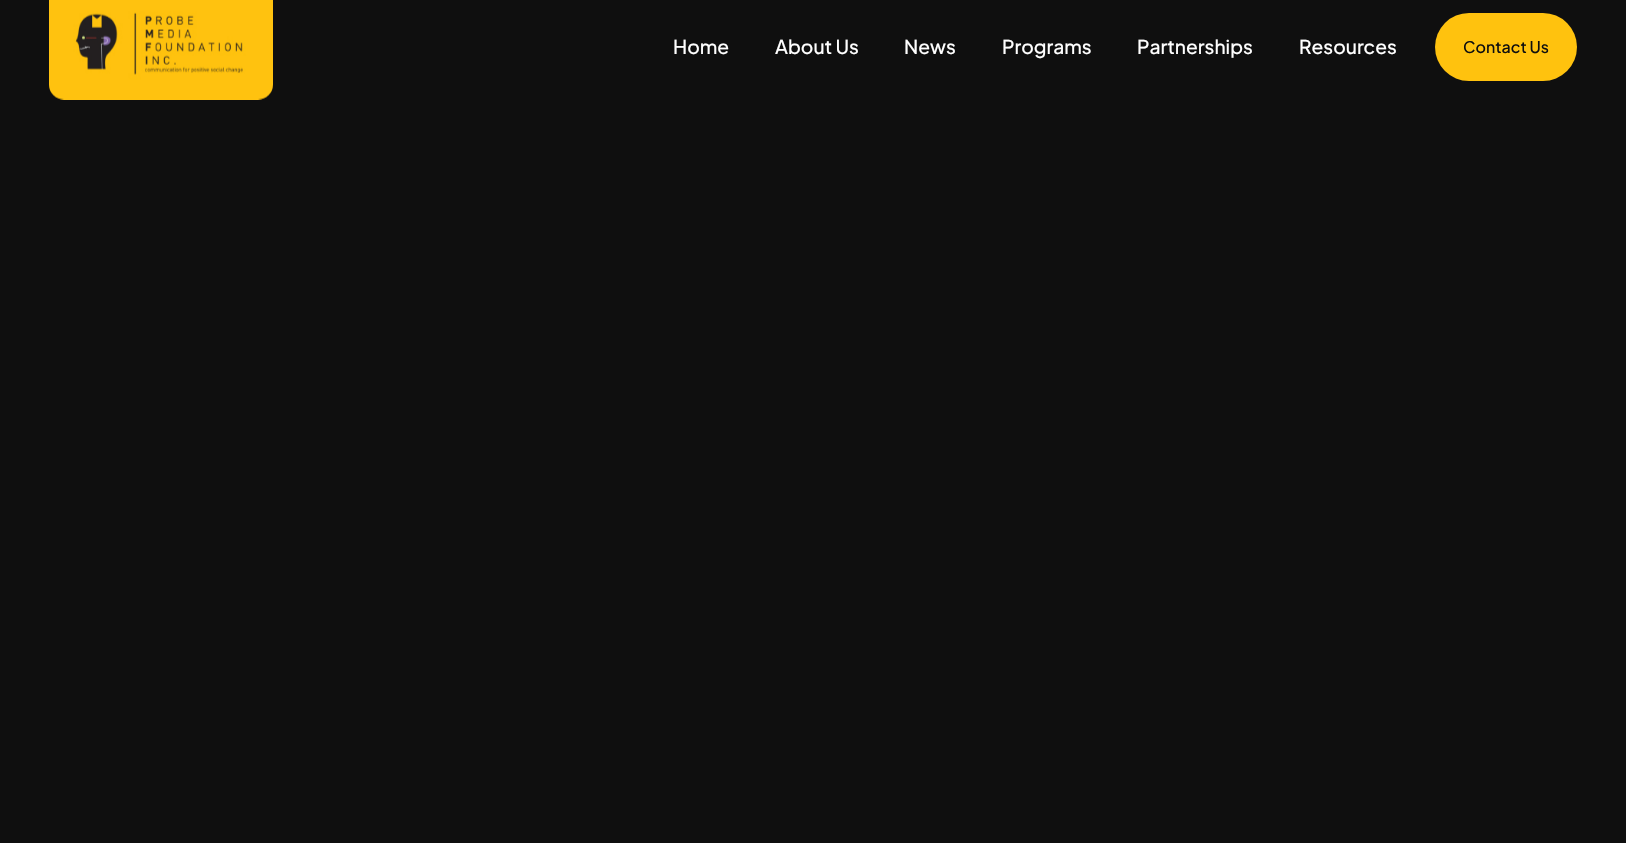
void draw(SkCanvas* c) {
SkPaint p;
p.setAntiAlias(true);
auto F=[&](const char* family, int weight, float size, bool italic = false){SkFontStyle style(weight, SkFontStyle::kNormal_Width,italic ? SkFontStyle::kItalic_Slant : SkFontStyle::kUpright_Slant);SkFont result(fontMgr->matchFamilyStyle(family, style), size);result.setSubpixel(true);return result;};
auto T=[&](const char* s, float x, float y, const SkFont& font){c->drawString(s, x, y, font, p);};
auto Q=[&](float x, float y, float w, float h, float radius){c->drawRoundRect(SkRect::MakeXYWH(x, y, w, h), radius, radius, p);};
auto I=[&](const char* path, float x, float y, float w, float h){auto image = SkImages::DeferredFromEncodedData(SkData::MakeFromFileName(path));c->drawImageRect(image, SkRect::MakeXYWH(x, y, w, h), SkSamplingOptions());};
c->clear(0xff0f0f0f);
I("1.png",49,0,224,100);
auto f1 = F("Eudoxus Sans",500,19.25);
p.setColor(0xffffffff);
T("Home",673,54,f1);
T("About Us",775,54,f1);
T("News",904,54,f1);
T("Programs",1002,54,f1);
T("Partnerships",1137,54,f1);
T("Resources",1299,54,f1);
p.setColor(0xffffc20e);
Q(1435,13,142,68,34);
auto f2 = F("Eudoxus Sans",500,16);
p.setColor(0xff0f0f0f);
T("Contact Us",1463,53,f2);
}
